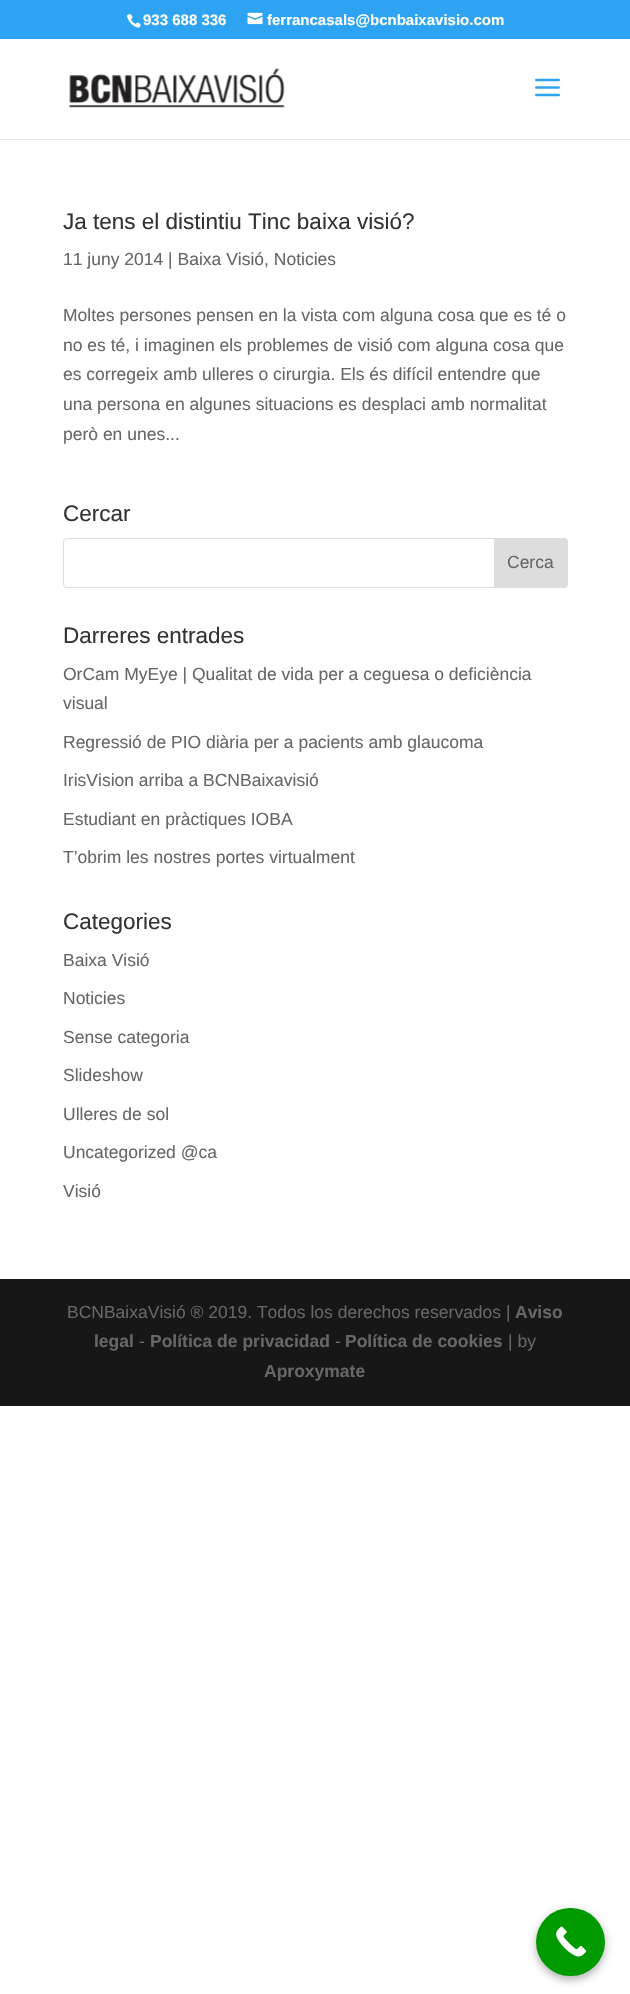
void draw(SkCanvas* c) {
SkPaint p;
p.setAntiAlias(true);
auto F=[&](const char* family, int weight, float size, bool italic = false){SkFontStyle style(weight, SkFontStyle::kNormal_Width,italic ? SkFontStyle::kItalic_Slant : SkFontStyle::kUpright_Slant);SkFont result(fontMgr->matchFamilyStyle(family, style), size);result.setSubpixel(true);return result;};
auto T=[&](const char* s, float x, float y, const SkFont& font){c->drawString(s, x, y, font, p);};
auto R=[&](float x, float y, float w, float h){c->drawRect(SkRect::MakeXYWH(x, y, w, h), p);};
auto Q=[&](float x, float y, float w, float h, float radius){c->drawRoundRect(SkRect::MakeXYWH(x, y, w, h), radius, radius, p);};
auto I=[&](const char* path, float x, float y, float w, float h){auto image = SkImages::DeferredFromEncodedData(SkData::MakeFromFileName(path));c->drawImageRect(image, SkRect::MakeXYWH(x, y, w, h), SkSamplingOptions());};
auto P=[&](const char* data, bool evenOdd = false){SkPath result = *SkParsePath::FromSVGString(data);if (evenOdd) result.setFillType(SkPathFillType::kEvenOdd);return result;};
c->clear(0xffffffff);
p.setColor(0xff2ea3f2);
R(0,0,630,39);
I("1.png",126,14,15,14);
auto f1 = F("Liberation Sans",700,15);
p.setColor(0xffffffff);
T("933 688 336",143,25,f1);
I("2.png",247,12,16,13);
T("ferrancasals@bcnbaixavisio.com",267,25,f1);
p.setColor(0xffe6e6e6);
R(0,139,630,1);
I("3.png",69,68,216,40);
I("4.png",535,78,25,19);
auto f2 = F("Liberation Sans",400,22.5);
p.setColor(0xff333333);
T("Ja tens el distintiu Tinc baixa visió?",63,229,f2);
auto f3 = F("Liberation Sans",400,17.5);
p.setColor(0xff666666);
T("11 juny 2014 | Baixa Visió, Noticies",63,265,f3);
T("Moltes persones pensen en la vista com alguna cosa que es té o",63,321,f3);
T("no es té, i imaginen els problemes de visió com alguna cosa que",63,351,f3);
T("es corregeix amb ulleres o cirurgia. Els és difícil entendre que",63,380,f3);
T("una persona en algunes situacions es desplaci amb normalitat",63,410,f3);
T("però en unes...",63,440,f3);
p.setColor(0xff333333);
T("Cercar",63,521,f2);
p.setStroke(true);
p.setStrokeWidth(1);
p.setColor(0xffdddddd);
c->drawRoundRect(SkRect::MakeXYWH(63.5,538.5,504,49),3.5,3.5,p);
p.setStroke(false);
c->drawPath(P("M494.5 538.5h69.5c2 0 3.5 1.5 3.5 3.5v42c0 2-1.5 3.5-3.5 3.5h-69.5z"),p);
p.setStroke(true);
c->drawPath(P("M494.5 538.5h69.5c2 0 3.5 1.5 3.5 3.5v42c0 2-1.5 3.5-3.5 3.5h-69.5z"),p);
p.setStroke(false);
p.setColor(0xff666666);
T("Cerca",507,568,f3);
p.setColor(0xff333333);
T("Darreres entrades",63,643,f2);
p.setColor(0xff666666);
T("OrCam MyEye | Qualitat de vida per a ceguesa o deficiència",63,680,f3);
T("visual",63,709,f3);
T("Regressió de PIO diària per a pacients amb glaucoma",63,748,f3);
T("IrisVision arriba a BCNBaixavisió",63,786,f3);
T("Estudiant en pràctiques IOBA",63,825,f3);
T("T’obrim les nostres portes virtualment",63,863,f3);
p.setColor(0xff333333);
T("Categories",63,929,f2);
p.setColor(0xff666666);
T("Baixa Visió",63,966,f3);
T("Noticies",63,1004,f3);
T("Sense categoria",63,1043,f3);
T("Slideshow",63,1081,f3);
T("Ulleres de sol",63,1120,f3);
T("Uncategorized @ca",63,1158,f3);
T("Visió",63,1197,f3);
p.setColor(0xff171717);
R(0,1279,630,127);
p.setColor(0xff666666);
T("BCNBaixaVisió ® 2019. Todos los derechos reservados |",67,1318,f3);
auto f4 = F("Liberation Sans",700,17.5);
T("Aviso",515,1318,f4);
T("legal",94,1347,f4);
T("-",139,1347,f3);
T("Política de privacidad",150,1347,f4);
T("-",335,1347,f3);
T("Política de cookies",345,1347,f4);
T("| by",508,1347,f3);
T("Aproxymate",264,1377,f4);
p.setColor(0x4d000000);
p.setMaskFilter(SkMaskFilter::MakeBlur(kNormal_SkBlurStyle, 4));
c->drawRoundRect(SkRect::MakeXYWH(536,1911,69,69),34.5,34.5,p);
p.setMaskFilter(nullptr);
p.setColor(0xff009900);
Q(536,1908,69,68,34);
I("5.png",556,1926,31,31);
}
